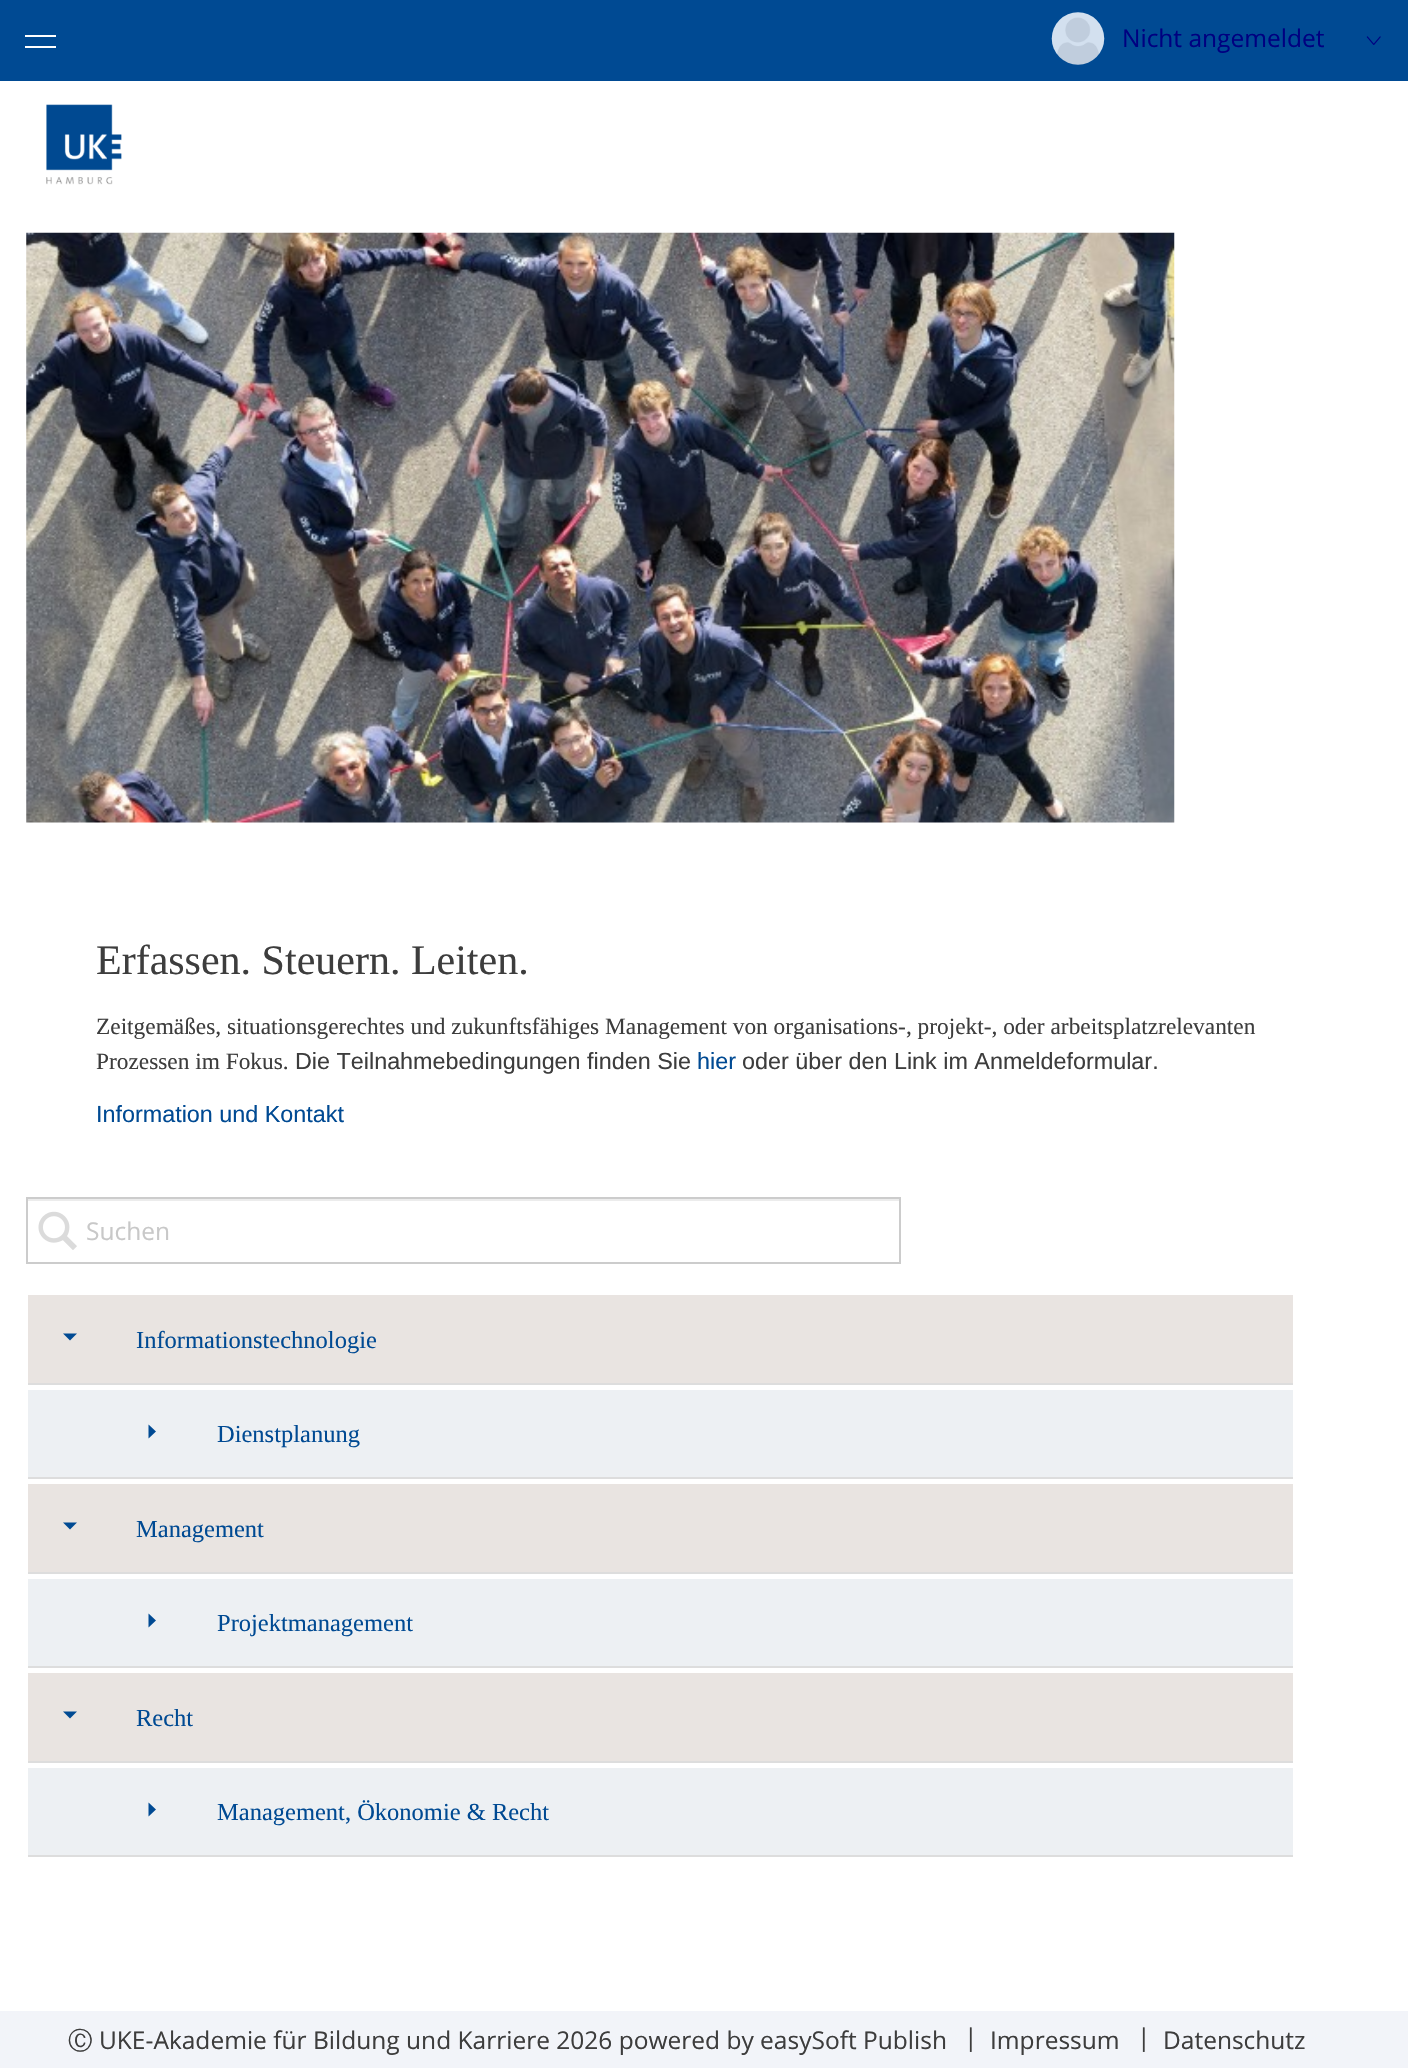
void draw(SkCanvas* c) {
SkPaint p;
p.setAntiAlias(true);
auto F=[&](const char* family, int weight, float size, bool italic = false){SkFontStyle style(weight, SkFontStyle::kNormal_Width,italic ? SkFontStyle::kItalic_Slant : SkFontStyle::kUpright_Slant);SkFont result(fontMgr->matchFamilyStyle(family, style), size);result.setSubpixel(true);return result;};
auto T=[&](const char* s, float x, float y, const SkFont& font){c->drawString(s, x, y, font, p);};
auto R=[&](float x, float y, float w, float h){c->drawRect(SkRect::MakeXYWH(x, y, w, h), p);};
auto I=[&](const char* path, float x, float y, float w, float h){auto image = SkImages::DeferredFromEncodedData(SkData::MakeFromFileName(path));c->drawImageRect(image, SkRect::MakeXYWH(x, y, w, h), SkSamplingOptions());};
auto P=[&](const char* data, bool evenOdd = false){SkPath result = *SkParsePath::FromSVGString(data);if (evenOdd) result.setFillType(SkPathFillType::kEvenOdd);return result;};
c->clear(0xffffffff);
p.setColor(0xff004a93);
R(0,0,1408,81);
p.setColor(0xffffffff);
R(25,35,31,2);
R(25,46,31,2);
I("1.png",1051,12,54,53);
auto f1 = F("Open Sans",400,24.5);
p.setColor(0xff000080);
T("Nicht angemeldet",1122,47,f1);
I("2.png",1366,36,15,9);
I("3.png",46,104,76,81);
I("4.png",26,232,1149,591);
auto f2 = F("Liberation Serif",400,42);
p.setColor(0xff3d3d3d);
T("Erfassen. Steuern. Leiten.",96,974,f2);
auto f3 = F("Liberation Serif",400,23.35);
T("Zeitgemäßes, situationsgerechtes und zukunftsfähiges Management von organisations-, projekt-, oder arbeitsplatzrelevanten",96,1034,f3);
T("Prozessen im Fokus.",96,1069,f3);
auto f4 = F("Liberation Sans",400,23.35);
T("Die Teilnahmebedingungen finden Sie",295,1069,f4);
p.setColor(0xff004a93);
T("hier",697,1069,f4);
p.setColor(0xff3d3d3d);
T("oder über den Link im Anmeldeformular.",742,1069,f4);
p.setColor(0xff004a93);
T("Information und Kontakt",96,1122,f4);
p.setColor(0xffececec);
R(28,1199,872,2);
p.setStroke(true);
p.setStrokeWidth(2);
p.setColor(0xffcccccc);
c->drawRect(SkRect::MakeXYWH(27,1198,873,65),p);
I("5.png",38,1211,39,39);
p.setStroke(false);
p.setColor(0xffc8c8c8);
T("Suchen",86,1240,f1);
p.setColor(0xffe9e4e1);
R(28,1295,1265,88);
auto f5 = F("Liberation Serif",400,24.5);
p.setColor(0xff004a93);
T("Informationstechnologie",136,1348,f5);
p.setColor(0xffdddddd);
R(28,1383,1265,2);
p.setColor(0xff004a93);
c->drawPath(P("M70 1340.5l-7-7h14z"),p);
p.setColor(0xffedf0f3);
R(28,1390,1265,87);
p.setColor(0xff004a93);
c->drawPath(P("M156 1431.5l-7.5 7v-14z"),p);
T("Dienstplanung",217,1442,f5);
p.setColor(0xffdddddd);
R(28,1477,1265,2);
p.setColor(0xffe9e4e1);
R(28,1484,1265,88);
p.setColor(0xff004a93);
T("Management",136,1537,f5);
p.setColor(0xffdddddd);
R(28,1572,1265,2);
p.setColor(0xff004a93);
c->drawPath(P("M70 1529.5l-7-7h14z"),p);
p.setColor(0xffedf0f3);
R(28,1579,1265,87);
p.setColor(0xff004a93);
c->drawPath(P("M156 1620.5l-7.5 7v-14z"),p);
T("Projektmanagement",217,1631,f5);
p.setColor(0xffdddddd);
R(28,1666,1265,2);
p.setColor(0xffe9e4e1);
R(28,1673,1265,88);
p.setColor(0xff004a93);
T("Recht",136,1726,f5);
p.setColor(0xffdddddd);
R(28,1761,1265,2);
p.setColor(0xff004a93);
c->drawPath(P("M70 1718.5l-7-7h14z"),p);
p.setColor(0xffedf0f3);
R(28,1768,1265,87);
p.setColor(0xff004a93);
c->drawPath(P("M156 1809.5l-7.5 7v-14z"),p);
T("Management, Ökonomie & Recht",217,1820,f5);
p.setColor(0xffdddddd);
R(28,1855,1265,2);
p.setColor(0xfff2f4f9);
R(0,2011,1408,57);
auto f6 = F("WenQuanYi Zen Hei",500,24.5);
p.setColor(0xff3d3d3d);
T("Ⓒ",68,2049,f6);
T("UKE-Akademie für Bildung und Karriere 2026 powered by easySoft Publish",99,2049,f1);
T("|",964,2046,f1);
T("Impressum",990,2049,f1);
T("|",1137,2046,f1);
T("Datenschutz",1163,2049,f1);
}
